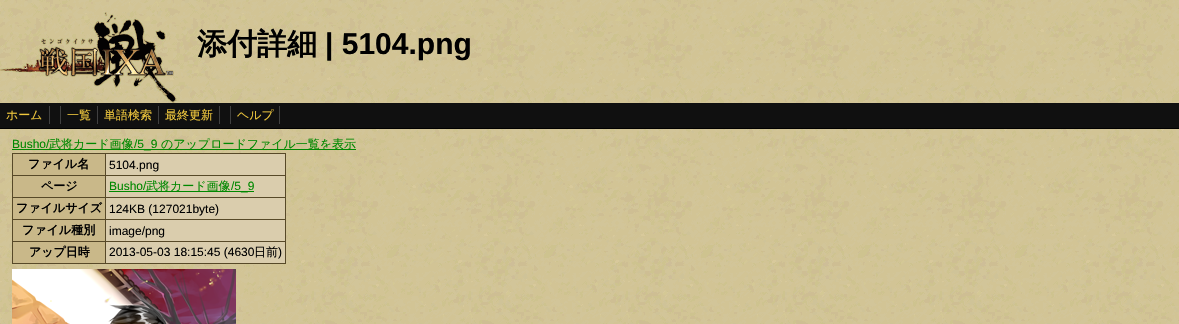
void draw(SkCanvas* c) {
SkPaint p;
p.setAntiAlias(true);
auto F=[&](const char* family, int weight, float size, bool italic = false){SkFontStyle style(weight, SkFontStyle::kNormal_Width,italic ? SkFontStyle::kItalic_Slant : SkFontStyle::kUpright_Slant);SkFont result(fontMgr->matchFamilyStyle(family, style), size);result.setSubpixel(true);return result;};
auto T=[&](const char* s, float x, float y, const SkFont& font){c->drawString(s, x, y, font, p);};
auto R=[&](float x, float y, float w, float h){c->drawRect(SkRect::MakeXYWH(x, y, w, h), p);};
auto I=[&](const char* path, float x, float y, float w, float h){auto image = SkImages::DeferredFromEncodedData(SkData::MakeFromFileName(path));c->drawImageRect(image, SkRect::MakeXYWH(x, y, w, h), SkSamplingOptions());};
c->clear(0xffffffff);
I("1.png",0,0,1179,324);
I("2.png",0,12,177,91);
auto f1 = F("WenQuanYi Zen Hei",700,30);
p.setColor(0xff000000);
T("添付詳細",197,54,f1);
auto f2 = F("Liberation Sans",700,30);
T("| 5104.png",325,54,f2);
p.setColor(0xff101010);
R(0,103,1179,25);
auto f3 = F("WenQuanYi Zen Hei",500,12);
p.setColor(0xfff0c83d);
T("ホーム",6,119,f3);
p.setColor(0xff404040);
R(49,106,1,18);
R(60,106,1,18);
p.setColor(0xfff0c83d);
T("一覧",67,119,f3);
p.setColor(0xff404040);
R(97,106,1,18);
p.setColor(0xfff0c83d);
T("単語検索",104,119,f3);
p.setColor(0xff404040);
R(158,106,1,18);
p.setColor(0xfff0c83d);
T("最終更新",165,119,f3);
p.setColor(0xff404040);
R(219,106,1,18);
R(230,106,1,18);
p.setColor(0xfff0c83d);
T("ヘルプ",237,119,f3);
p.setColor(0xff404040);
R(279,106,1,18);
p.setColor(0xff000000);
R(0,128,1179,1);
auto f4 = F("Liberation Sans",400,12);
p.setColor(0xff008800);
T("Busho/",12,148,f4);
R(12,149,344,1);
T("武将カード画像",49,148,f3);
T("/5_9",134,148,f4);
T("のアップロードファイル一覧を表示",161,148,f3);
p.setColor(0xff574928);
R(12,153,274,111);
p.setColor(0xffc9b889);
R(13,154,92,21);
auto f5 = F("WenQuanYi Zen Hei",700,12);
p.setColor(0xff000000);
T("ファイル名",28,168,f5);
p.setColor(0xffdacdad);
R(106,154,179,21);
p.setColor(0xff000000);
T("5104.png",109,169,f4);
p.setColor(0xffc9b889);
R(13,176,92,21);
p.setColor(0xff000000);
T("ページ",41,190,f5);
p.setColor(0xffdacdad);
R(106,176,179,21);
p.setColor(0xff008800);
T("Busho/",109,190,f4);
R(109,191,145,1);
T("武将カード画像",146,190,f3);
T("/5_9",231,190,f4);
p.setColor(0xffc9b889);
R(13,198,92,21);
p.setColor(0xff000000);
T("ファイルサイズ",16,212,f5);
p.setColor(0xffdacdad);
R(106,198,179,21);
p.setColor(0xff000000);
T("124KB (127021byte)",109,213,f4);
p.setColor(0xffc9b889);
R(13,220,92,21);
p.setColor(0xff000000);
T("ファイル種別",22,234,f5);
p.setColor(0xffdacdad);
R(106,220,179,21);
p.setColor(0xff000000);
T("image/png",109,235,f4);
p.setColor(0xffc9b889);
R(13,242,92,21);
p.setColor(0xff000000);
T("アップ日時",29,256,f5);
p.setColor(0xffdacdad);
R(106,242,179,21);
p.setColor(0xff000000);
T("2013-05-03 18:15:45 (4630",109,256,f4);
T("日前",254,256,f3);
T(")",278,256,f4);
I("3.png",12,269,224,55);
}
